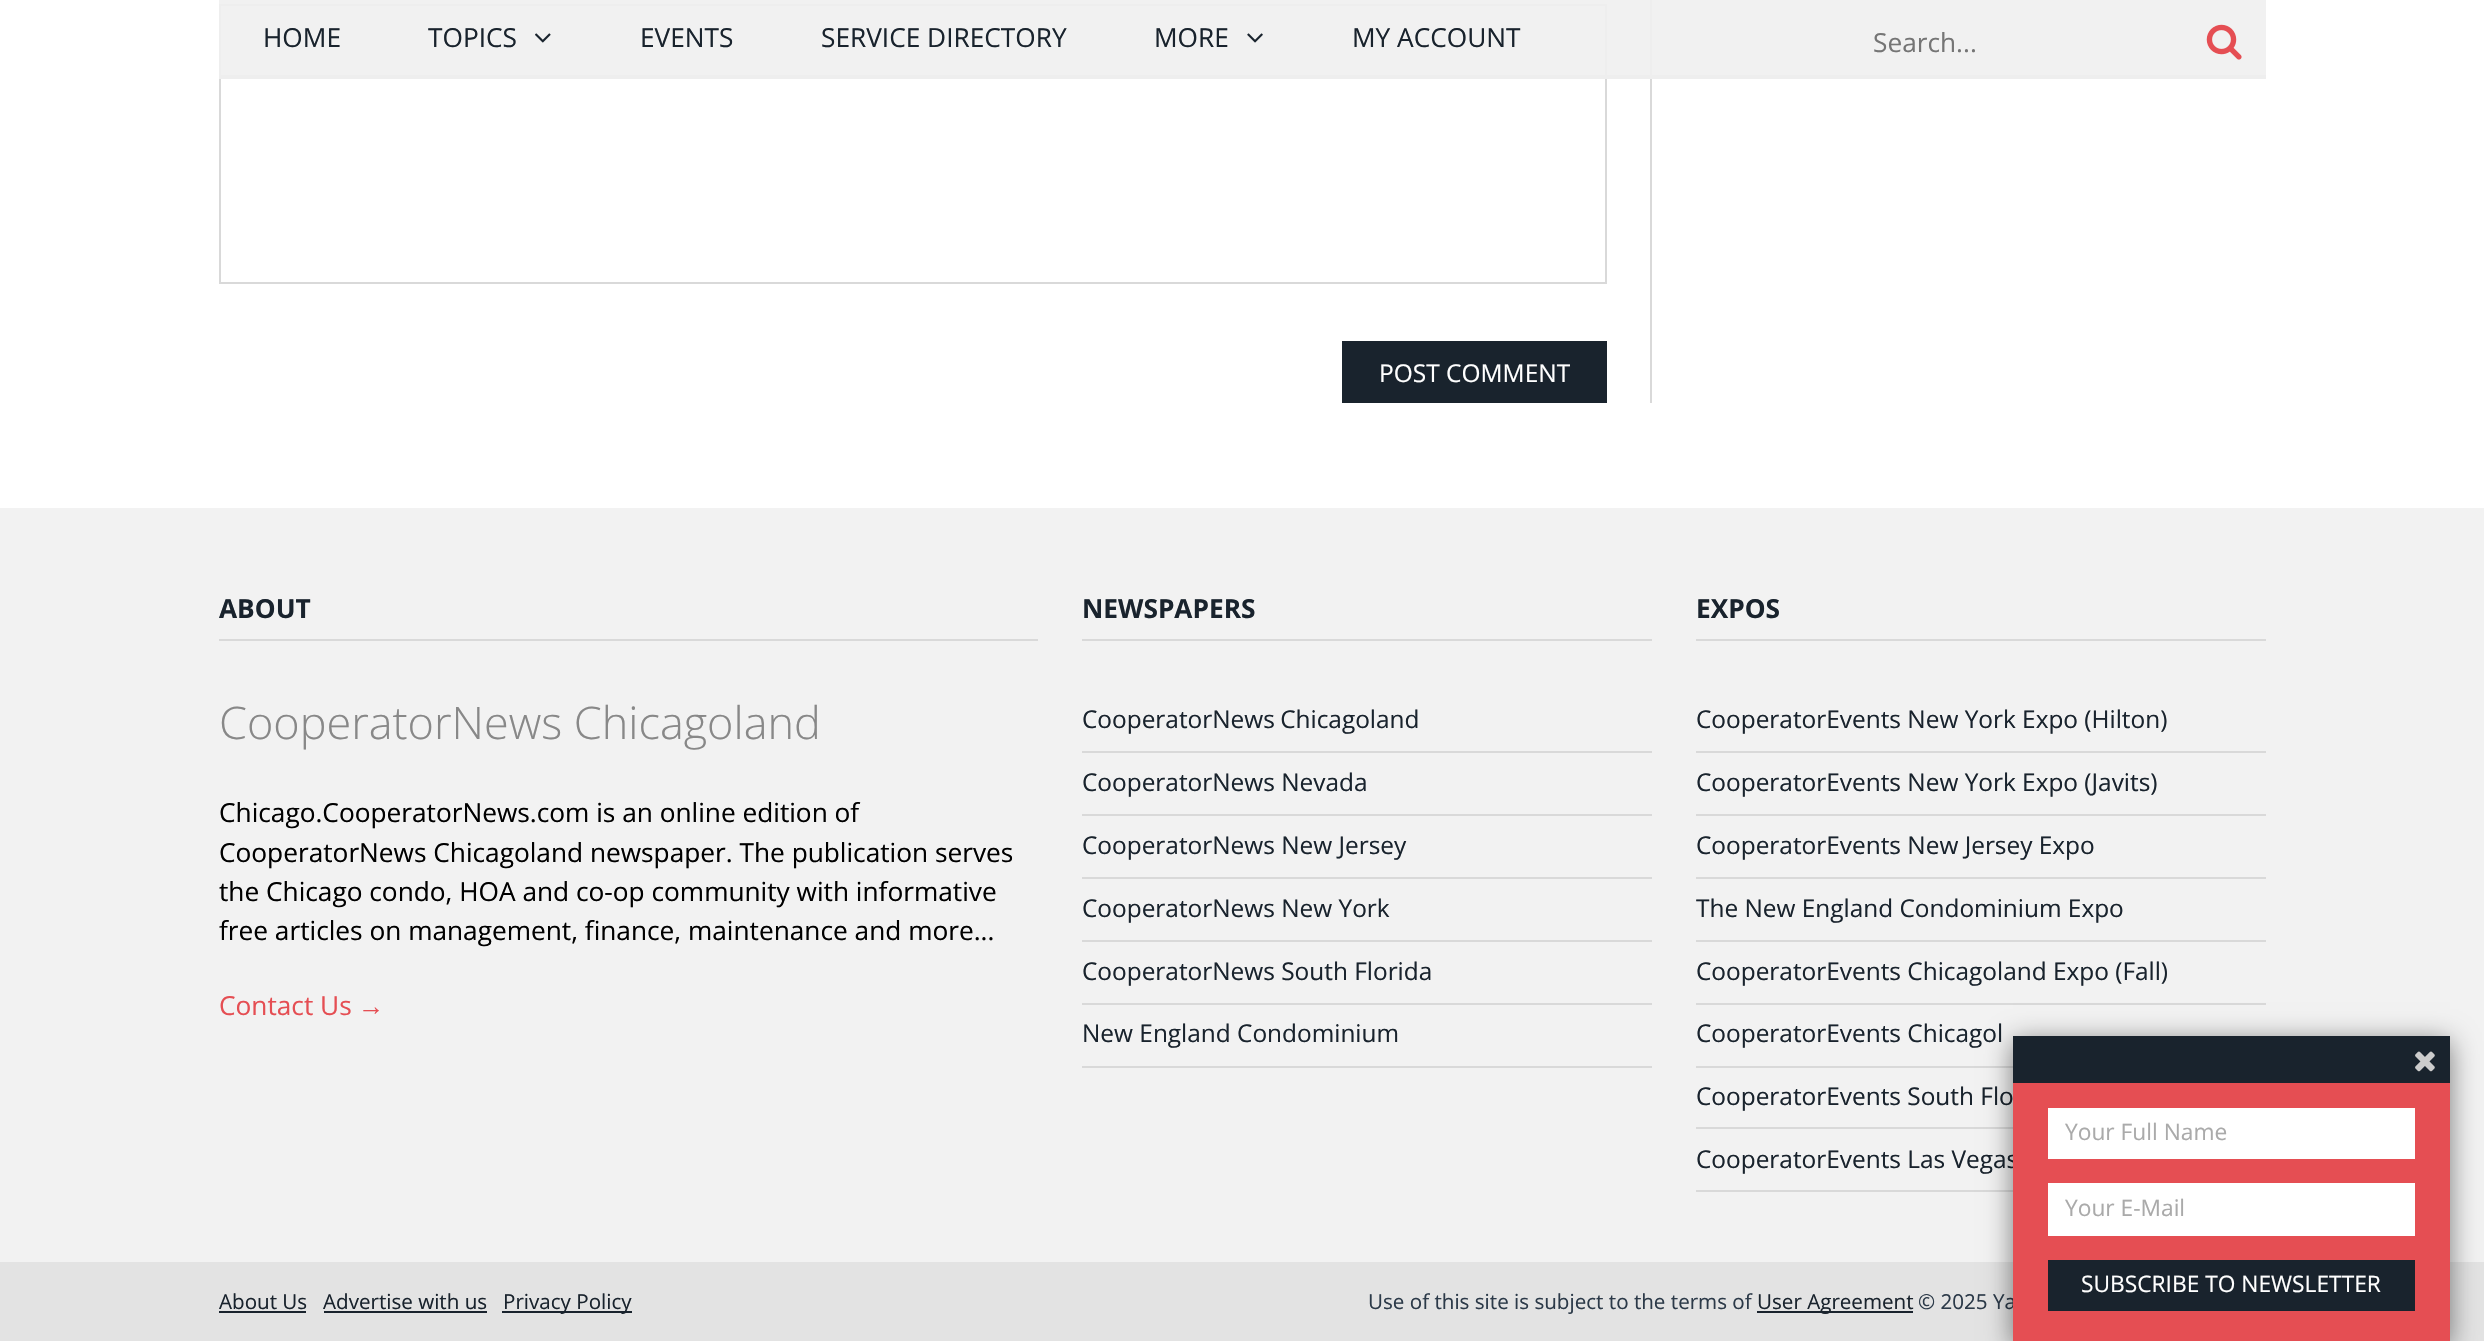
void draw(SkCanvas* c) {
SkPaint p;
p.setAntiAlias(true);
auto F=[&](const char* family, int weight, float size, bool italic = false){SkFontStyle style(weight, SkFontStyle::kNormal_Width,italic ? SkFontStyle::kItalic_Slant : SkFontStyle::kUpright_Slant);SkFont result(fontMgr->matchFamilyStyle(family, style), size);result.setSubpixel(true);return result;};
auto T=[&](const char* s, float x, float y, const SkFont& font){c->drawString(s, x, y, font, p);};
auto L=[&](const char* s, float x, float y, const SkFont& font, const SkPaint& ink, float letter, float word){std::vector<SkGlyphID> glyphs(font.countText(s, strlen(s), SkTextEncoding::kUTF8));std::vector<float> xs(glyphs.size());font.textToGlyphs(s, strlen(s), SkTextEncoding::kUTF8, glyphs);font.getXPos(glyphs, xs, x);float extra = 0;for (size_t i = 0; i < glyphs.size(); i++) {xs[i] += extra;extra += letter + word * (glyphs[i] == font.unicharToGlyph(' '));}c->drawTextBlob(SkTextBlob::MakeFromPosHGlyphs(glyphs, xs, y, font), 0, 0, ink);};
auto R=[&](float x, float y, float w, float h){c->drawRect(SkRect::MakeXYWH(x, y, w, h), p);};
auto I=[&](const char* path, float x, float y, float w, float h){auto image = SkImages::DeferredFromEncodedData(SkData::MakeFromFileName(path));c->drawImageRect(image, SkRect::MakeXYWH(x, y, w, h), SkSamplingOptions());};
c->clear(0xffffffff);
p.setColor(0xffd9d9d9);
R(1650,0,2,403);
p.setStroke(true);
p.setStrokeWidth(2);
c->drawRect(SkRect::MakeXYWH(220,5,1386,278),p);
p.setStroke(false);
p.setColor(0xe6efefef);
R(219,0,2047,75);
p.setColor(0xffeeeeee);
R(219,75,2047,4);
auto f1 = F("Open Sans",400,26.25);
p.setColor(0xff19232d);
T("HOME",263,47,f1);
T("TOPICS",428,47,f1);
I("1.png",535,33,16,10);
T("EVENTS",640,47,f1);
T("SERVICE DIRECTORY",821,47,f1);
T("MORE",1154,47,f1);
I("2.png",1247,33,16,10);
T("MY ACCOUNT",1352,47,f1);
p.setColor(0xff757575);
T("Search...",1873,52,f1);
I("3.png",2206,24,36,36);
p.setColor(0xff19232d);
R(1342,341,265,62);
auto f2 = F("Open Sans",400,24.5);
p.setColor(0xffffffff);
T("POST COMMENT",1379,382,f2);
p.setColor(0xfff2f2f2);
R(0,508,2484,754);
p.setColor(0xffd9d9d9);
R(219,639,819,2);
auto f3 = F("Open Sans",700,26.25);
p.setColor(0xff19232d);
T("ABOUT",219,618,f3);
auto f4 = F("Open Sans",300,45);
p.setColor(0xff888888);
T("CooperatorNews Chicagoland",219,739,f4);
p.setColor(0xff000000);
T("Chicago.CooperatorNews.com is an online edition of",219,822,f1);
T("CooperatorNews Chicagoland newspaper. The publication serves",219,862,f1);
T("the Chicago condo, HOA and co-op community with informative",219,901,f1);
T("free articles on management, finance, maintenance and more...",219,940,f1);
p.setColor(0xffe54e53);
T("Contact Us",219,1015,f1);
auto f5 = F("Liberation Sans",400,26.25);
T("→",358,1015,f5);
p.setColor(0xffd9d9d9);
R(1082,639,570,2);
p.setColor(0xff19232d);
T("NEWSPAPERS",1082,618,f3);
p.setColor(0xffd9d9d9);
R(1082,751,570,2);
auto f6 = F("Open Sans",400,24.4);
p.setColor(0xff19232d);
L("CooperatorNews Chicagoland",1082,728,f6,p,0,-1);
p.setColor(0xffd9d9d9);
R(1082,814,570,2);
p.setColor(0xff19232d);
T("CooperatorNews Nevada",1082,791,f6);
p.setColor(0xffd9d9d9);
R(1082,877,570,2);
p.setColor(0xff19232d);
T("CooperatorNews New Jersey",1082,854,f6);
p.setColor(0xffd9d9d9);
R(1082,940,570,2);
p.setColor(0xff19232d);
T("CooperatorNews New York",1082,917,f6);
p.setColor(0xffd9d9d9);
R(1082,1003,570,2);
p.setColor(0xff19232d);
T("CooperatorNews South Florida",1082,980,f6);
p.setColor(0xffd9d9d9);
R(1082,1066,570,2);
p.setColor(0xff19232d);
T("New England Condominium",1082,1042,f6);
p.setColor(0xffd9d9d9);
R(1696,639,570,2);
p.setColor(0xff19232d);
T("EXPOS",1696,618,f3);
p.setColor(0xffd9d9d9);
R(1696,751,570,2);
p.setColor(0xff19232d);
T("CooperatorEvents New York Expo (Hilton)",1696,728,f6);
p.setColor(0xffd9d9d9);
R(1696,814,570,2);
p.setColor(0xff19232d);
T("CooperatorEvents New York Expo (Javits)",1696,791,f6);
p.setColor(0xffd9d9d9);
R(1696,877,570,2);
p.setColor(0xff19232d);
T("CooperatorEvents New Jersey Expo",1696,854,f6);
p.setColor(0xffd9d9d9);
R(1696,940,570,2);
p.setColor(0xff19232d);
T("The New England Condominium Expo",1696,917,f6);
p.setColor(0xffd9d9d9);
R(1696,1003,570,2);
p.setColor(0xff19232d);
T("CooperatorEvents Chicagoland Expo (Fall)",1696,980,f6);
p.setColor(0xffd9d9d9);
R(1696,1066,317,2);
p.setColor(0xff19232d);
T("CooperatorEvents Chicagol",1696,1042,f6);
p.setColor(0xffd9d9d9);
R(1696,1127,317,2);
p.setColor(0xff19232d);
T("CooperatorEvents South Flo",1696,1105,f6);
p.setColor(0xffd9d9d9);
R(1696,1190,317,2);
p.setColor(0xff19232d);
T("CooperatorEvents Las Vegas",1696,1168,f6);
p.setColor(0xffe3e3e3);
R(0,1262,2484,79);
auto f7 = F("Open Sans",400,20.6);
p.setColor(0xff19232d);
T("About Us",219,1309,f7);
R(219,1311,87,2);
T("Advertise with us",323,1309,f7);
R(324,1311,163,2);
R(502,1311,130,2);
T("Privacy Policy",503,1309,f7);
p.setColor(0xff2c3a49);
T("Use of this site is subject to the terms of",1368,1309,f7);
p.setColor(0xff19232d);
R(1757,1311,156,2);
T("User Agreement",1757,1309,f7);
p.setColor(0xff2c3a49);
T("© 2025 Ya",1918,1309,f7);
p.setColor(0x80000000);
p.setMaskFilter(SkMaskFilter::MakeBlur(kNormal_SkBlurStyle, 13));
c->drawRect(SkRect::MakeXYWH(2013,1041,437,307),p);
p.setMaskFilter(nullptr);
p.setColor(0xffe54e53);
R(2013,1083,437,258);
p.setColor(0xff19232d);
R(2013,1036,437,47);
I("4.png",2415,1051,20,21);
p.setColor(0xffffffff);
R(2048,1108,367,51);
auto f8 = F("Open Sans",400,22.75);
p.setColor(0xffaaaaaa);
T("Your Full Name",2065,1140,f8);
p.setColor(0xffffffff);
R(2048,1183,367,53);
p.setColor(0xffaaaaaa);
T("Your E-Mail",2065,1216,f8);
p.setColor(0xff19232d);
R(2048,1260,367,51);
p.setColor(0xffffffff);
T("SUBSCRIBE TO NEWSLETTER",2081,1292,f8);
}
